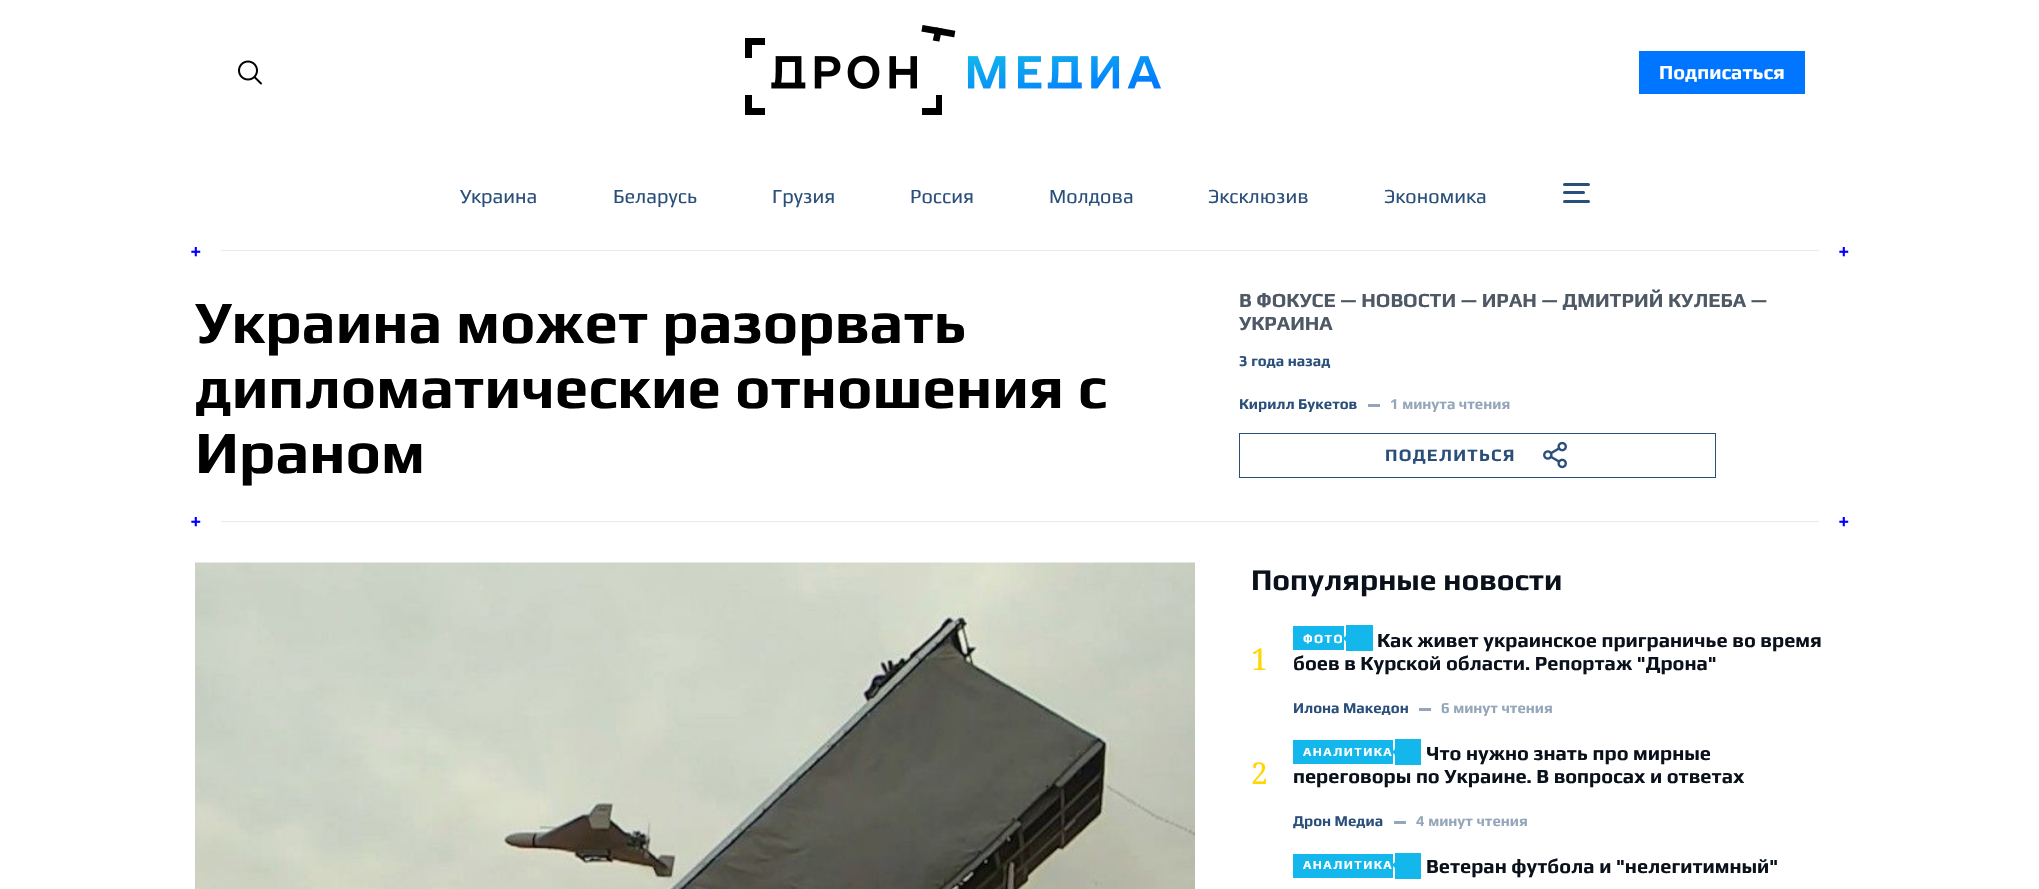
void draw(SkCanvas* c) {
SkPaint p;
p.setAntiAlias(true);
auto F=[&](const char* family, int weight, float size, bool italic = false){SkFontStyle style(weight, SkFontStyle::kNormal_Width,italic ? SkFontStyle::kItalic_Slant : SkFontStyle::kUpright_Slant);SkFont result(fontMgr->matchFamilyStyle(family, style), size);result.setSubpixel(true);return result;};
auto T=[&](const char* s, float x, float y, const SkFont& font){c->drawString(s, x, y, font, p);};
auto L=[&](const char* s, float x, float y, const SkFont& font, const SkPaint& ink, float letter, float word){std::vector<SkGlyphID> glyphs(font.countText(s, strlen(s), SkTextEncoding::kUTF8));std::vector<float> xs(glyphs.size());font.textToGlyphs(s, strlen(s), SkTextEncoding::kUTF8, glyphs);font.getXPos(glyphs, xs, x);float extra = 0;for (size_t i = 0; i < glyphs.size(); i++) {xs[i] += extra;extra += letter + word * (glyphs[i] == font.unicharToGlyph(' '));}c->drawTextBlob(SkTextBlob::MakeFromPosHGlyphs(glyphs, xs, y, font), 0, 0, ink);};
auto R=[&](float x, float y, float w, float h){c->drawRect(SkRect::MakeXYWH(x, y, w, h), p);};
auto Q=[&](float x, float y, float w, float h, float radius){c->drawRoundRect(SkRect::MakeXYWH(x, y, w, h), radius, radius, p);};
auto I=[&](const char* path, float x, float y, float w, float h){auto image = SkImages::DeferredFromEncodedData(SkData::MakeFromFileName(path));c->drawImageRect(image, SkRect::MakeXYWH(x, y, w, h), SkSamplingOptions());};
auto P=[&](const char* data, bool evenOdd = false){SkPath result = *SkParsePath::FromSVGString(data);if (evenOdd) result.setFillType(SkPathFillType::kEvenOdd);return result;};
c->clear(0xffffffff);
I("1.png",238,60,24,25);
I("2.png",745,25,416,90);
p.setColor(0xff0075ff);
R(1639,51,166,43);
auto f1 = F("Play",700,20);
p.setColor(0xffffffff);
T("Подписаться",1659,79,f1);
auto f2 = F("Play",400,20);
p.setColor(0xff2a4f7a);
T("Украина",460,203,f2);
T("Беларусь",613,203,f2);
T("Грузия",772,203,f2);
T("Россия",910,203,f2);
T("Молдова",1049,203,f2);
T("Эксклюзив",1208,203,f2);
T("Экономика",1384,203,f2);
Q(1563,183,27,3,1.5);
Q(1563,191,22,3,1.5);
Q(1563,200,27,3,1.5);
p.setColor(0xffebebeb);
R(221,250,1598,1);
R(221,521,1598,1);
p.setColor(0xff0000ff);
T("+",190,258,f1);
T("+",1838,258,f1);
auto f3 = F("Play",700,60);
p.setColor(0xff000000);
T("Украина может разорвать",195,343,f3);
T("дипломатические отношения с",195,408,f3);
T("Ираном",195,473,f3);
p.setColor(0xff4e5965);
T("В ФОКУСЕ — НОВОСТИ — ИРАН — ДМИТРИЙ КУЛЕБА —",1239,307,f1);
T("УКРАИНА",1239,330,f1);
auto f4 = F("Play",700,15);
p.setColor(0xff2a4f7a);
T("3 года назад",1239,366,f4);
T("Кирилл Букетов",1239,409,f4);
p.setColor(0xff95a6ba);
R(1368,404,12,3);
T("1 минута чтения",1390,409,f4);
p.setStroke(true);
p.setStrokeWidth(1);
p.setColor(0xff2a4f7a);
c->drawRect(SkRect::MakeXYWH(1239.5,433.5,476,44),p);
auto f5 = F("Play",700,17.5);
p.setStroke(false);
L("ПОДЕЛИТЬСЯ",1385,461,f5,p,1.25,0);
I("3.png",1543,441,24,28);
p.setColor(0xff0000ff);
T("+",190,528,f1);
T("+",1838,528,f1);
I("4.png",195,562,1000,327);
auto f6 = F("Play",700,30);
p.setColor(0xff0a111b);
T("Популярные новости",1251,590,f6);
auto f7 = F("Noto Serif",400,30);
p.setColor(0xffffd600);
T("1",1251,670,f7);
p.setColor(0xff13b7eb);
R(1293,626,51,24);
R(1346,625,27,26);
auto f8 = F("Play",700,12.5);
p.setColor(0xffffffff);
L("ФОТО",1303,643,f8,p,1.4,0);
p.setColor(0xff13b7eb);
c->drawPath(P("M1354.5 627l11.5 11.5l-11.5 11.5l-11.5-11.5z"),p);
p.setColor(0xff0a111b);
T("Как живет украинское приграничье во время",1377,647,f1);
T("боев в Курской области. Репортаж \"Дрона\"",1293,670,f1);
p.setColor(0xff2a4f7a);
T("Илона Македон",1293,713,f4);
p.setColor(0xff95a6ba);
R(1419,708,12,3);
T("6 минут чтения",1441,713,f4);
p.setColor(0xffffd600);
T("2",1251,784,f7);
p.setColor(0xff13b7eb);
R(1293,740,100,24);
R(1395,739,26,26);
p.setColor(0xffffffff);
L("АНАЛИТИКА",1303,756,f8,p,1.4,0);
p.setColor(0xff13b7eb);
c->drawPath(P("M1403.5 740.5l11.5 11.5l-11.5 11.5l-11.5-11.5z"),p);
p.setColor(0xff0a111b);
T("Что нужно знать про мирные",1426,760,f1);
T("переговоры по Украине. В вопросах и ответах",1293,783,f1);
p.setColor(0xff2a4f7a);
T("Дрон Медиа",1293,826,f4);
p.setColor(0xff95a6ba);
R(1394,821,12,3);
T("4 минут чтения",1416,826,f4);
p.setColor(0xff13b7eb);
R(1293,854,100,24);
R(1395,853,26,26);
p.setColor(0xffffffff);
L("АНАЛИТИКА",1303,869,f8,p,1.4,0);
p.setColor(0xff13b7eb);
c->drawPath(P("M1403.5 853.5l11.5 11.5l-11.5 11.5l-11.5-11.5z"),p);
p.setColor(0xff0a111b);
T("Ветеран футбола и \"нелегитимный\"",1426,873,f1);
}
